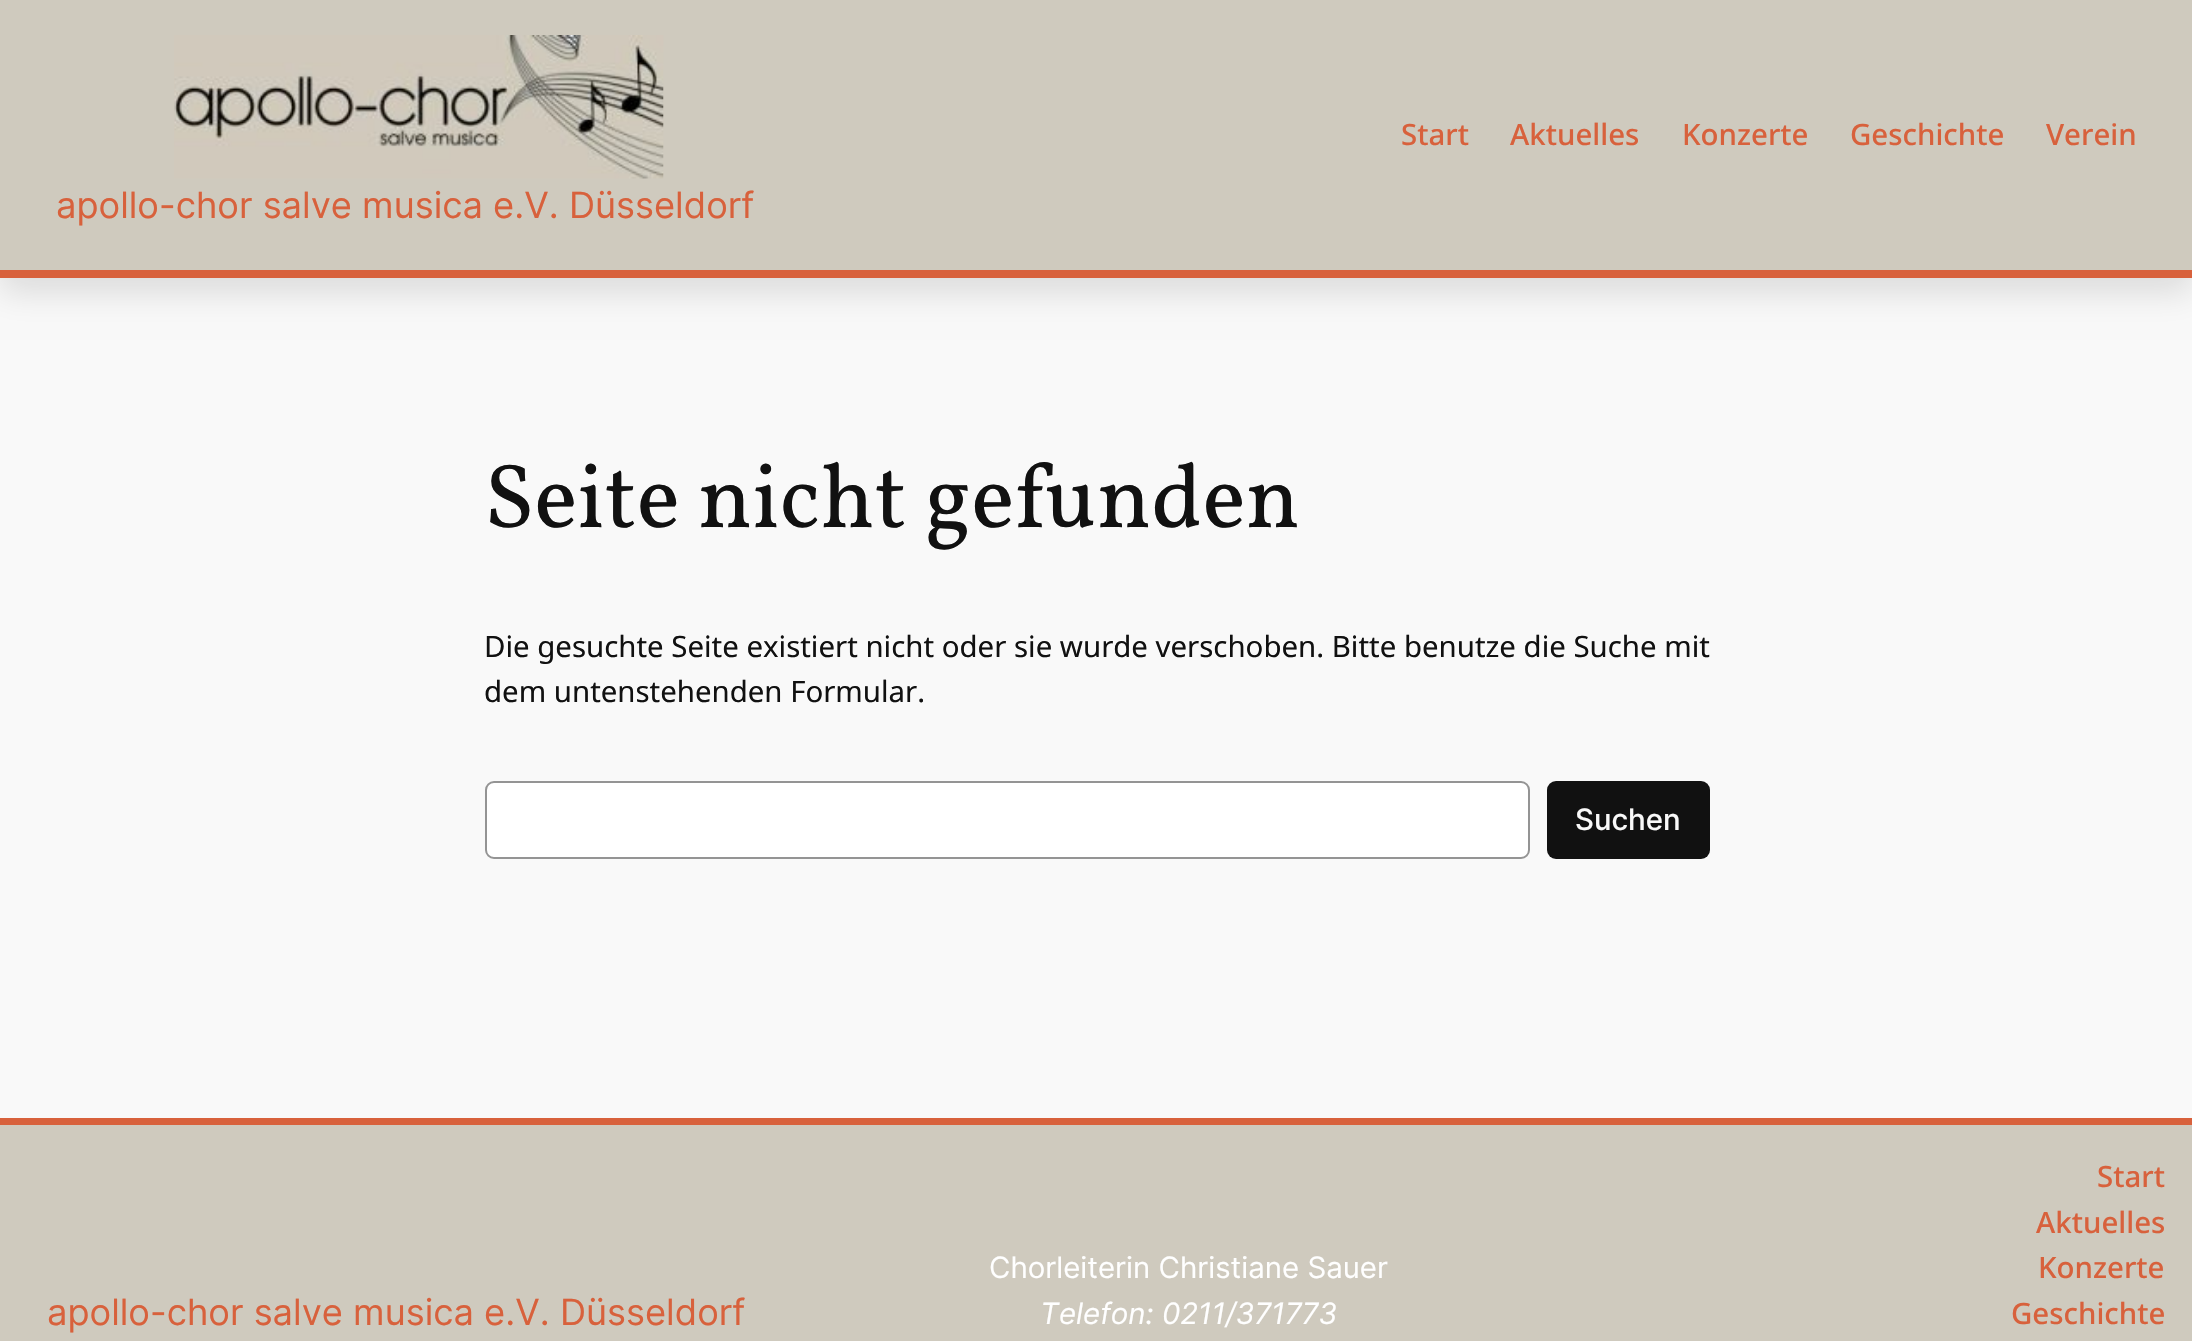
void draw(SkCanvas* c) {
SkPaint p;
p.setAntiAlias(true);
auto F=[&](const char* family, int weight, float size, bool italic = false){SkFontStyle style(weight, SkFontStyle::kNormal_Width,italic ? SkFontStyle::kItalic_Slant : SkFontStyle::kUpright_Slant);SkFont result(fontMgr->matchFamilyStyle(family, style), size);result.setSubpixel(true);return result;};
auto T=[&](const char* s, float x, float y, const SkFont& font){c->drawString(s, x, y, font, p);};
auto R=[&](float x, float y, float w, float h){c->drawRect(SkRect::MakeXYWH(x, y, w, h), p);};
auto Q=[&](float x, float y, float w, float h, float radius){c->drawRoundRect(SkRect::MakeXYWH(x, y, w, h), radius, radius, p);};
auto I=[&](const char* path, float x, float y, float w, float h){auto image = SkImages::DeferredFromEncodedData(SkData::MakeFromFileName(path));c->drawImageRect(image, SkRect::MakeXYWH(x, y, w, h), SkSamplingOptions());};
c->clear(0xfff9f9f9);
p.setColor(0x1f000000);
p.setMaskFilter(SkMaskFilter::MakeBlur(kNormal_SkBlurStyle, 16));
c->drawRect(SkRect::MakeXYWH(0,14,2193,278),p);
p.setMaskFilter(nullptr);
p.setColor(0xffcfcabe);
R(0,0,2192,270);
p.setColor(0xffd8613c);
R(0,270,2192,8);
auto f1 = F("Noto Sans",500,29.4);
T("Start",1401,145,f1);
T("Aktuelles",1510,145,f1);
T("Konzerte",1682,145,f1);
T("Geschichte",1850,145,f1);
T("Verein",2046,145,f1);
I("1.png",174,35,490,144);
auto f2 = F("Inter",400,36.25);
T("apollo-chor salve musica e.V. Düsseldorf",56,218,f2);
auto f3 = F("Vollkorn",400,91);
p.setColor(0xff111111);
T("Seite nicht gefunden",484,527,f3);
auto f4 = F("Noto Sans",400,29.4);
T("Die gesuchte Seite existiert nicht oder sie wurde verschoben. Bitte benutze die Suche mit",484,657,f4);
T("dem untenstehenden Formular.",484,702,f4);
p.setColor(0xffffffff);
c->drawRoundRect(SkRect::MakeXYWH(486,782,1043,76),8,8,p);
p.setStroke(true);
p.setStrokeWidth(2);
p.setColor(0xff949494);
c->drawRoundRect(SkRect::MakeXYWH(486,782,1043,76),8,8,p);
p.setStroke(false);
p.setColor(0xff111111);
Q(1547,781,163,78,9);
auto f5 = F("Inter",500,29.4);
p.setColor(0xfff9f9f9);
T("Suchen",1575,830,f5);
p.setColor(0xffd8613c);
R(0,1118,2192,7);
p.setColor(0xffcfcabe);
R(0,1125,2192,216);
p.setColor(0xffd8613c);
T("apollo-chor salve musica e.V. Düsseldorf",47,1325,f2);
auto f6 = F("Inter",400,29.4);
p.setColor(0xffffffff);
T("Chorleiterin Christiane Sauer",989,1278,f6);
auto f7 = F("Inter",400,29.4,true);
T("Telefon: 0211/371773",1040,1324,f7);
p.setColor(0xffd8613c);
T("Start",2097,1187,f1);
T("Aktuelles",2036,1233,f1);
T("Konzerte",2038,1278,f1);
T("Geschichte",2011,1324,f1);
}
